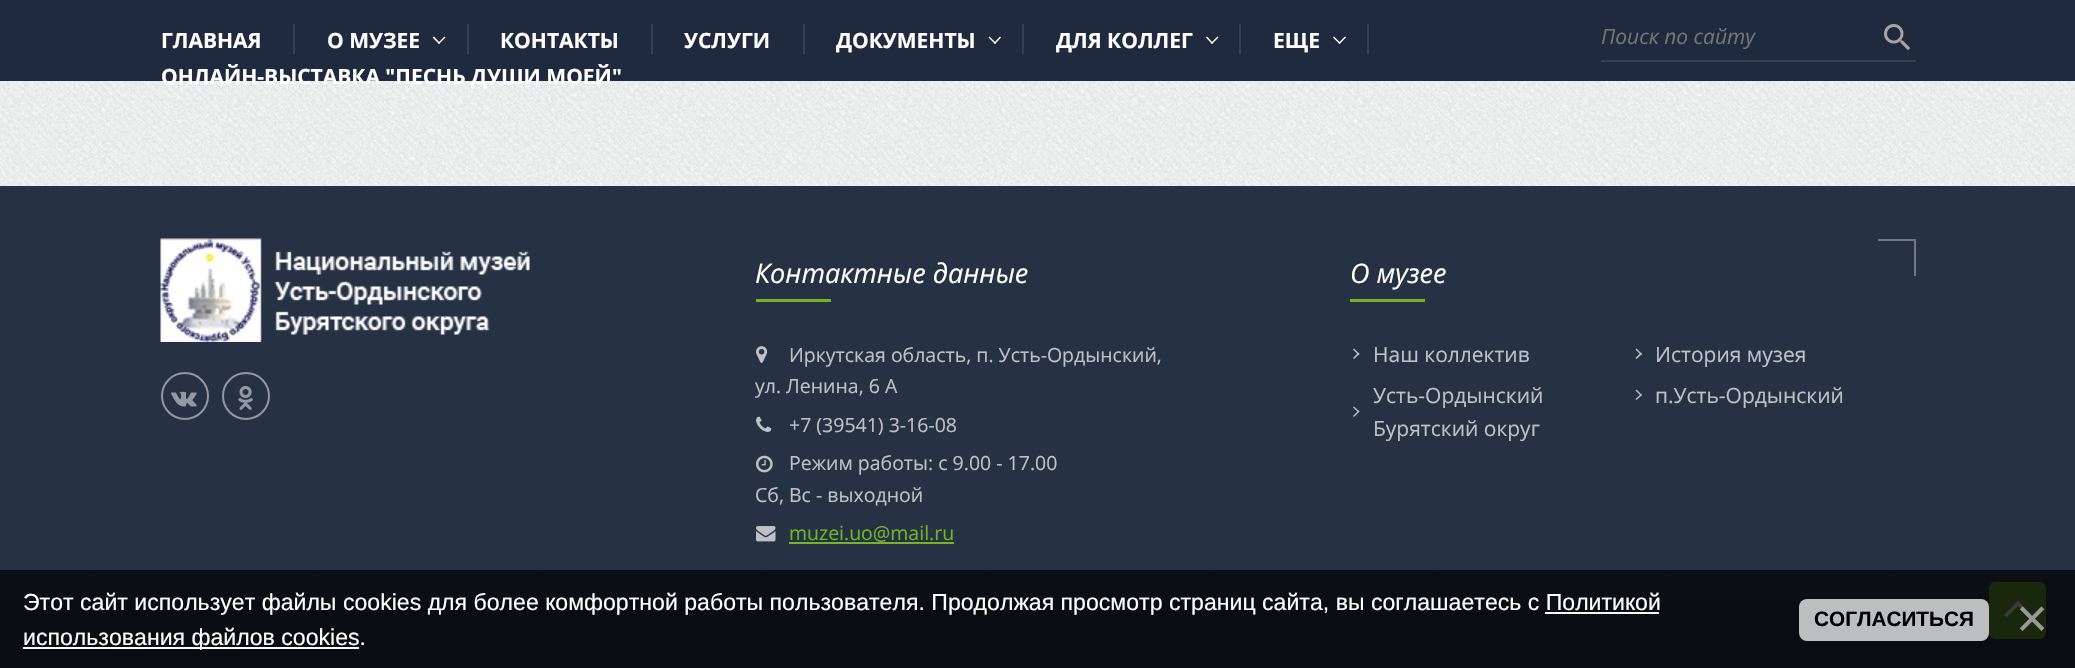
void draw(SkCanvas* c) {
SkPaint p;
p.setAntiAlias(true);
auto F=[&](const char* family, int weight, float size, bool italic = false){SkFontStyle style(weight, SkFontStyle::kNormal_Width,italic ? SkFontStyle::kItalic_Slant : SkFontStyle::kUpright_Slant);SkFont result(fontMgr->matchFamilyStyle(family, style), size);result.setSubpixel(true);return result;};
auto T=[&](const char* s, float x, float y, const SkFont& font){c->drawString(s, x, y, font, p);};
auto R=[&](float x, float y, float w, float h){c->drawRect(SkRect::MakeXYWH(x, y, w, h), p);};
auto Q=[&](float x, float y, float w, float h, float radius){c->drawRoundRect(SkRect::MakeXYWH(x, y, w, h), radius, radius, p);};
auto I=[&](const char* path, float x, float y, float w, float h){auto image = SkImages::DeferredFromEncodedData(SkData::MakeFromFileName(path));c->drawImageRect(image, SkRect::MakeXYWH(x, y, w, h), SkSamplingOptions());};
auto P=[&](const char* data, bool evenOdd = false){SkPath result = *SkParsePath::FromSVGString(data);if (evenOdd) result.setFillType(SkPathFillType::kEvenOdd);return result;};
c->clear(0xffffffff);
I("1.png",0,81,2075,521);
p.setColor(0xff1f2a3e);
R(0,0,2075,81);
auto f1 = F("Open Sans",700,21);
p.setColor(0xffffffff);
T("ГЛАВНАЯ",161,48,f1);
p.setColor(0xff353f51);
R(293,24,2,30);
p.setColor(0xffffffff);
T("О МУЗЕЕ",327,48,f1);
c->drawPath(P("M444.5 36.5l1 1l-6.5 6.5l-1-1z"),p);
c->drawPath(P("M434 36.5l6 6.5l-1 1l-6.5-6.5z"),p);
p.setColor(0xff353f51);
R(467,24,2,30);
p.setColor(0xffffffff);
T("КОНТАКТЫ",500,48,f1);
p.setColor(0xff353f51);
R(651,24,2,30);
p.setColor(0xffffffff);
T("УСЛУГИ",684,48,f1);
p.setColor(0xff353f51);
R(803,24,2,30);
p.setColor(0xffffffff);
T("ДОКУМЕНТЫ",836,48,f1);
c->drawPath(P("M1000 36.5l1 1l-6 6.5l-1-1z"),p);
c->drawPath(P("M989.5 36.5l6.5 6.5l-1 1l-6.5-6.5z"),p);
p.setColor(0xff353f51);
R(1022,24,2,30);
p.setColor(0xffffffff);
T("ДЛЯ КОЛЛЕГ",1056,48,f1);
c->drawPath(P("M1217.5 36.5l1 1l-6.5 6.5l-1-1z"),p);
c->drawPath(P("M1207 36.5l6 6.5l-1 1l-6-6.5z"),p);
p.setColor(0xff353f51);
R(1239,24,2,30);
p.setColor(0xffffffff);
T("ЕЩЕ",1273,48,f1);
c->drawPath(P("M1345 36.5l1 1l-6.5 6.5l-1-1z"),p);
c->drawPath(P("M1334 36.5l6.5 6.5l-1 1l-6.5-6.5z"),p);
p.setColor(0xff353f51);
R(1367,24,2,30);
p.setColor(0xffffffff);
T("ОНЛАЙН-ВЫСТАВКА \"ПЕСНЬ ДУШИ МОЕЙ\"",161,84,f1);
p.setColor(0xff353f51);
R(1601,60,315,2);
auto f2 = F("Open Sans",400,21,true);
p.setColor(0xff757575);
T("Поиск по сайту",1601,44,f2);
I("2.png",1884,24,27,27);
p.setColor(0xf71f2a3e);
R(0,186,2075,416);
p.setColor(0xff717884);
R(1878,239,38,2);
R(1914,239,2,37);
I("3.png",160,238,370,104);
p.setStroke(true);
p.setStrokeWidth(2);
p.setColor(0xff9297a1);
c->drawCircle(185,396,23,p);
I("4.png",171,391,26,16);
c->drawCircle(246,396,23,p);
I("5.png",238,385,15,25);
auto f3 = F("Open Sans",400,27,true);
p.setStroke(false);
p.setColor(0xffffffff);
T("Контактные данные",755,283,f3);
p.setColor(0xff72b626);
R(756,299,75,3);
I("6.png",756,346,12,17);
auto f4 = F("Open Sans",400,19.5);
p.setColor(0xffbec1c7);
T("Иркутская область, п. Усть-Ордынский,",789,362,f4);
T("ул. Ленина, 6 А",755,393,f4);
I("7.png",756,416,16,16);
T("+7 (39541) 3-16-08",789,432,f4);
I("8.png",756,455,17,18);
T("Режим работы: с 9.00 - 17.00",789,470,f4);
T("Сб, Вс - выходной",755,502,f4);
I("9.png",756,526,20,16);
p.setColor(0xff72b626);
T("muzei.uo@mail.ru",789,540,f4);
R(789,542,165,2);
p.setColor(0xffffffff);
T("О музее",1350,283,f3);
p.setColor(0xff72b626);
R(1350,299,75,3);
p.setColor(0xffbcc0c5);
c->drawPath(P("M1354 348.5l5.5 5.5l-1 1l-5.5-5.5z"),p);
c->drawPath(P("M1358.5 352.5l1 1.5l-5.5 5l-1-1z"),p);
auto f5 = F("Open Sans",400,21);
p.setColor(0xffbec1c7);
T("Наш коллектив",1373,362,f5);
p.setColor(0xffbcc0c5);
c->drawPath(P("M1636.5 348.5l5.5 5.5l-1 1l-5.5-5.5z"),p);
c->drawPath(P("M1641 352.5l1 1.5l-5.5 5l-1-1z"),p);
p.setColor(0xffbec1c7);
T("История музея",1655,362,f5);
T("Усть-Ордынский",1373,403,f5);
p.setColor(0xffbcc0c5);
c->drawPath(P("M1354 406.5l5.5 5l-1 1l-5.5-5z"),p);
c->drawPath(P("M1358.5 410.5l1 1l-5.5 5.5l-1-1z"),p);
p.setColor(0xffbec1c7);
T("Бурятский округ",1373,436,f5);
p.setColor(0xffbcc0c5);
c->drawPath(P("M1636.5 389.5l5.5 5.5l-1 1l-5.5-5.5z"),p);
c->drawPath(P("M1641 394l1 1l-5.5 5l-1-1z"),p);
p.setColor(0xffbec1c7);
T("п.Усть-Ордынский",1655,403,f5);
p.setColor(0xff1f2a3e);
R(0,602,2075,66);
p.setColor(0xb572b626);
Q(1989,582,57,57,6);
I("10.png",2004,601,28,16);
p.setColor(0xba000000);
R(0,570,2075,98);
auto f6 = F("Liberation Sans",400,23.1);
p.setColor(0xffffffff);
T("Этот сайт использует файлы cookies для более комфортной работы пользователя. Продолжая просмотр страниц сайта, вы соглашаетесь с Политикой",23,610,f6);
R(23,647,336,2);
T("использования файлов cookies.",23,645,f6);
R(1545,612,114,2);
p.setColor(0xffbdbebf);
Q(1799,599,190,42,8);
auto f7 = F("Liberation Sans",700,20.75);
p.setColor(0xff000000);
T("СОГЛАСИТЬСЯ",1814,626,f7);
auto f8 = F("Liberation Sans",400,55);
p.setColor(0xff999999);
T("×",2016,637,f8);
}
